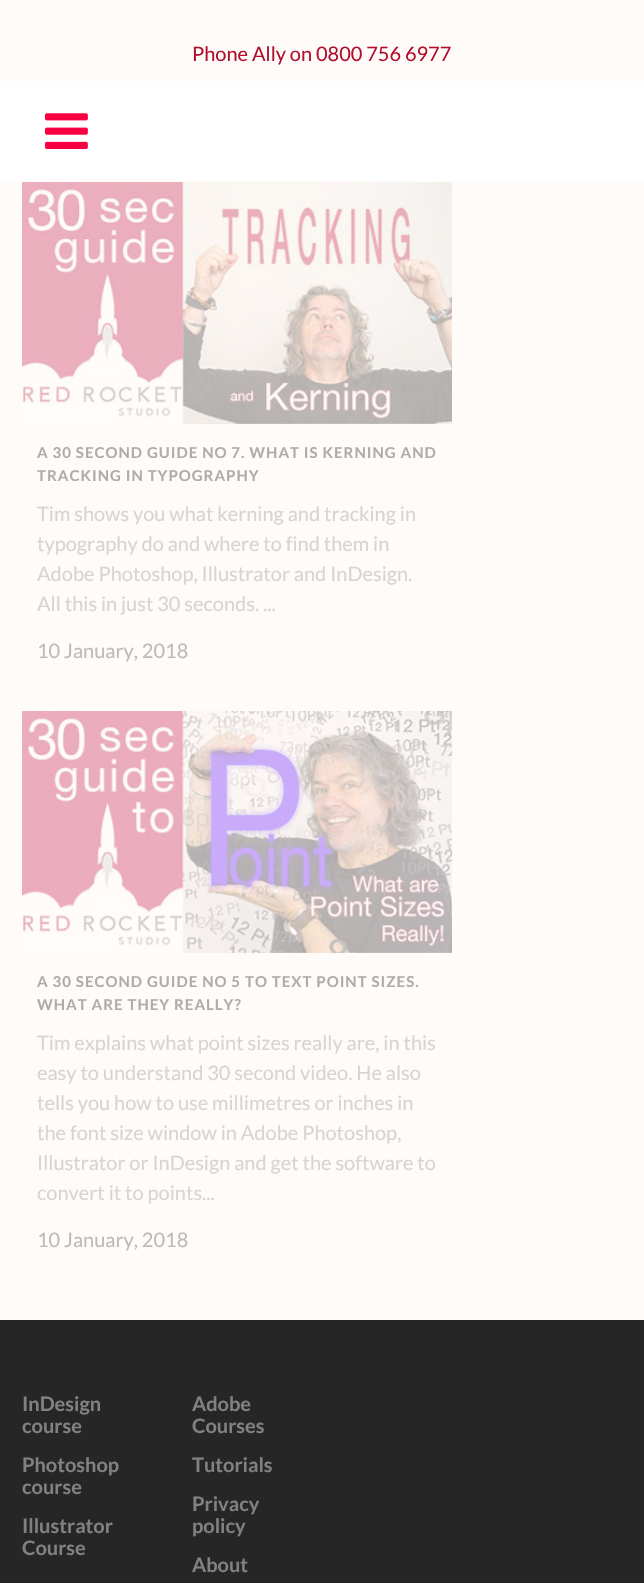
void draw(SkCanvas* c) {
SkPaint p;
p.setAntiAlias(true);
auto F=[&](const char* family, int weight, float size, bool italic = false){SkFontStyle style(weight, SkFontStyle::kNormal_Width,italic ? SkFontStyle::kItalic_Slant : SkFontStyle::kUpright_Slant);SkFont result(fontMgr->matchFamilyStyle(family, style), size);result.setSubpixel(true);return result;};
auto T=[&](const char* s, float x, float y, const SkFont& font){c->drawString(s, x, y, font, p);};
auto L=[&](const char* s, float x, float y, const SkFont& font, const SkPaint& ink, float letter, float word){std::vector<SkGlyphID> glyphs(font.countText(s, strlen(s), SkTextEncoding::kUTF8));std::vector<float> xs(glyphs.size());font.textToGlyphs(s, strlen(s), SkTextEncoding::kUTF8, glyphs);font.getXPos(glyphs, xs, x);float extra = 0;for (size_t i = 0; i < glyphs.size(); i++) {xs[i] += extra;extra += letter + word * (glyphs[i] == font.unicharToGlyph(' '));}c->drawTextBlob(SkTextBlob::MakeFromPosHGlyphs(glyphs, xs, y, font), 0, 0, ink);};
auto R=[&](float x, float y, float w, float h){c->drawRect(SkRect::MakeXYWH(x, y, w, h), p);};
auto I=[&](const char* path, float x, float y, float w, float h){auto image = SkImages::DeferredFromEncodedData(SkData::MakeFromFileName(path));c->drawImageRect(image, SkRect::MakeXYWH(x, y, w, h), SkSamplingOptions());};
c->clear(0xfffffbf9);
auto f1 = F("Lato",400,20);
p.setColor(0xffb20f2e);
T("Phone Ally on 0800 756 6977",192,61,f1);
p.setColor(0xffffffff);
R(0,81,644,100);
I("1.png",45,113,43,36);
I("2.png",22,182,430,242);
auto f2 = F("Lato",700,15);
p.setColor(0xffaeabaa);
L("A 30 SECOND GUIDE NO 7. WHAT IS KERNING AND",37,458,f2,p,1,0);
L("TRACKING IN TYPOGRAPHY",37,481,f2,p,1,0);
p.setColor(0xffd7d4d3);
T("Tim shows you what kerning and tracking in",37,521,f1);
T("typography do and where to find them in",37,551,f1);
T("Adobe Photoshop, Illustrator and InDesign.",37,581,f1);
T("All this in just 30 seconds. ...",37,611,f1);
p.setColor(0xffbdbab9);
T("10 January, 2018",37,658,f1);
I("3.png",22,711,430,242);
p.setColor(0xffaeabaa);
L("A 30 SECOND GUIDE NO 5 TO TEXT POINT SIZES.",37,987,f2,p,1,0);
L("WHAT ARE THEY REALLY?",37,1010,f2,p,1,0);
p.setColor(0xffd7d4d3);
T("Tim explains what point sizes really are, in this",37,1050,f1);
T("easy to understand 30 second video. He also",37,1080,f1);
T("tells you how to use millimetres or inches in",37,1110,f1);
T("the font size window in Adobe Photoshop,",37,1140,f1);
T("Illustrator or InDesign and get the software to",37,1170,f1);
T("convert it to points...",37,1200,f1);
p.setColor(0xffbdbab9);
T("10 January, 2018",37,1247,f1);
p.setColor(0xff262626);
R(0,1320,644,263);
auto f3 = F("Lato",700,20);
p.setColor(0xff818181);
T("InDesign",22,1411,f3);
T("course",22,1433,f3);
T("Photoshop",22,1472,f3);
T("course",22,1494,f3);
T("Illustrator",22,1533,f3);
T("Course",22,1555,f3);
T("Adobe",192,1411,f3);
T("Courses",192,1433,f3);
T("Tutorials",192,1472,f3);
T("Privacy",192,1511,f3);
T("policy",192,1533,f3);
T("About",192,1572,f3);
}
